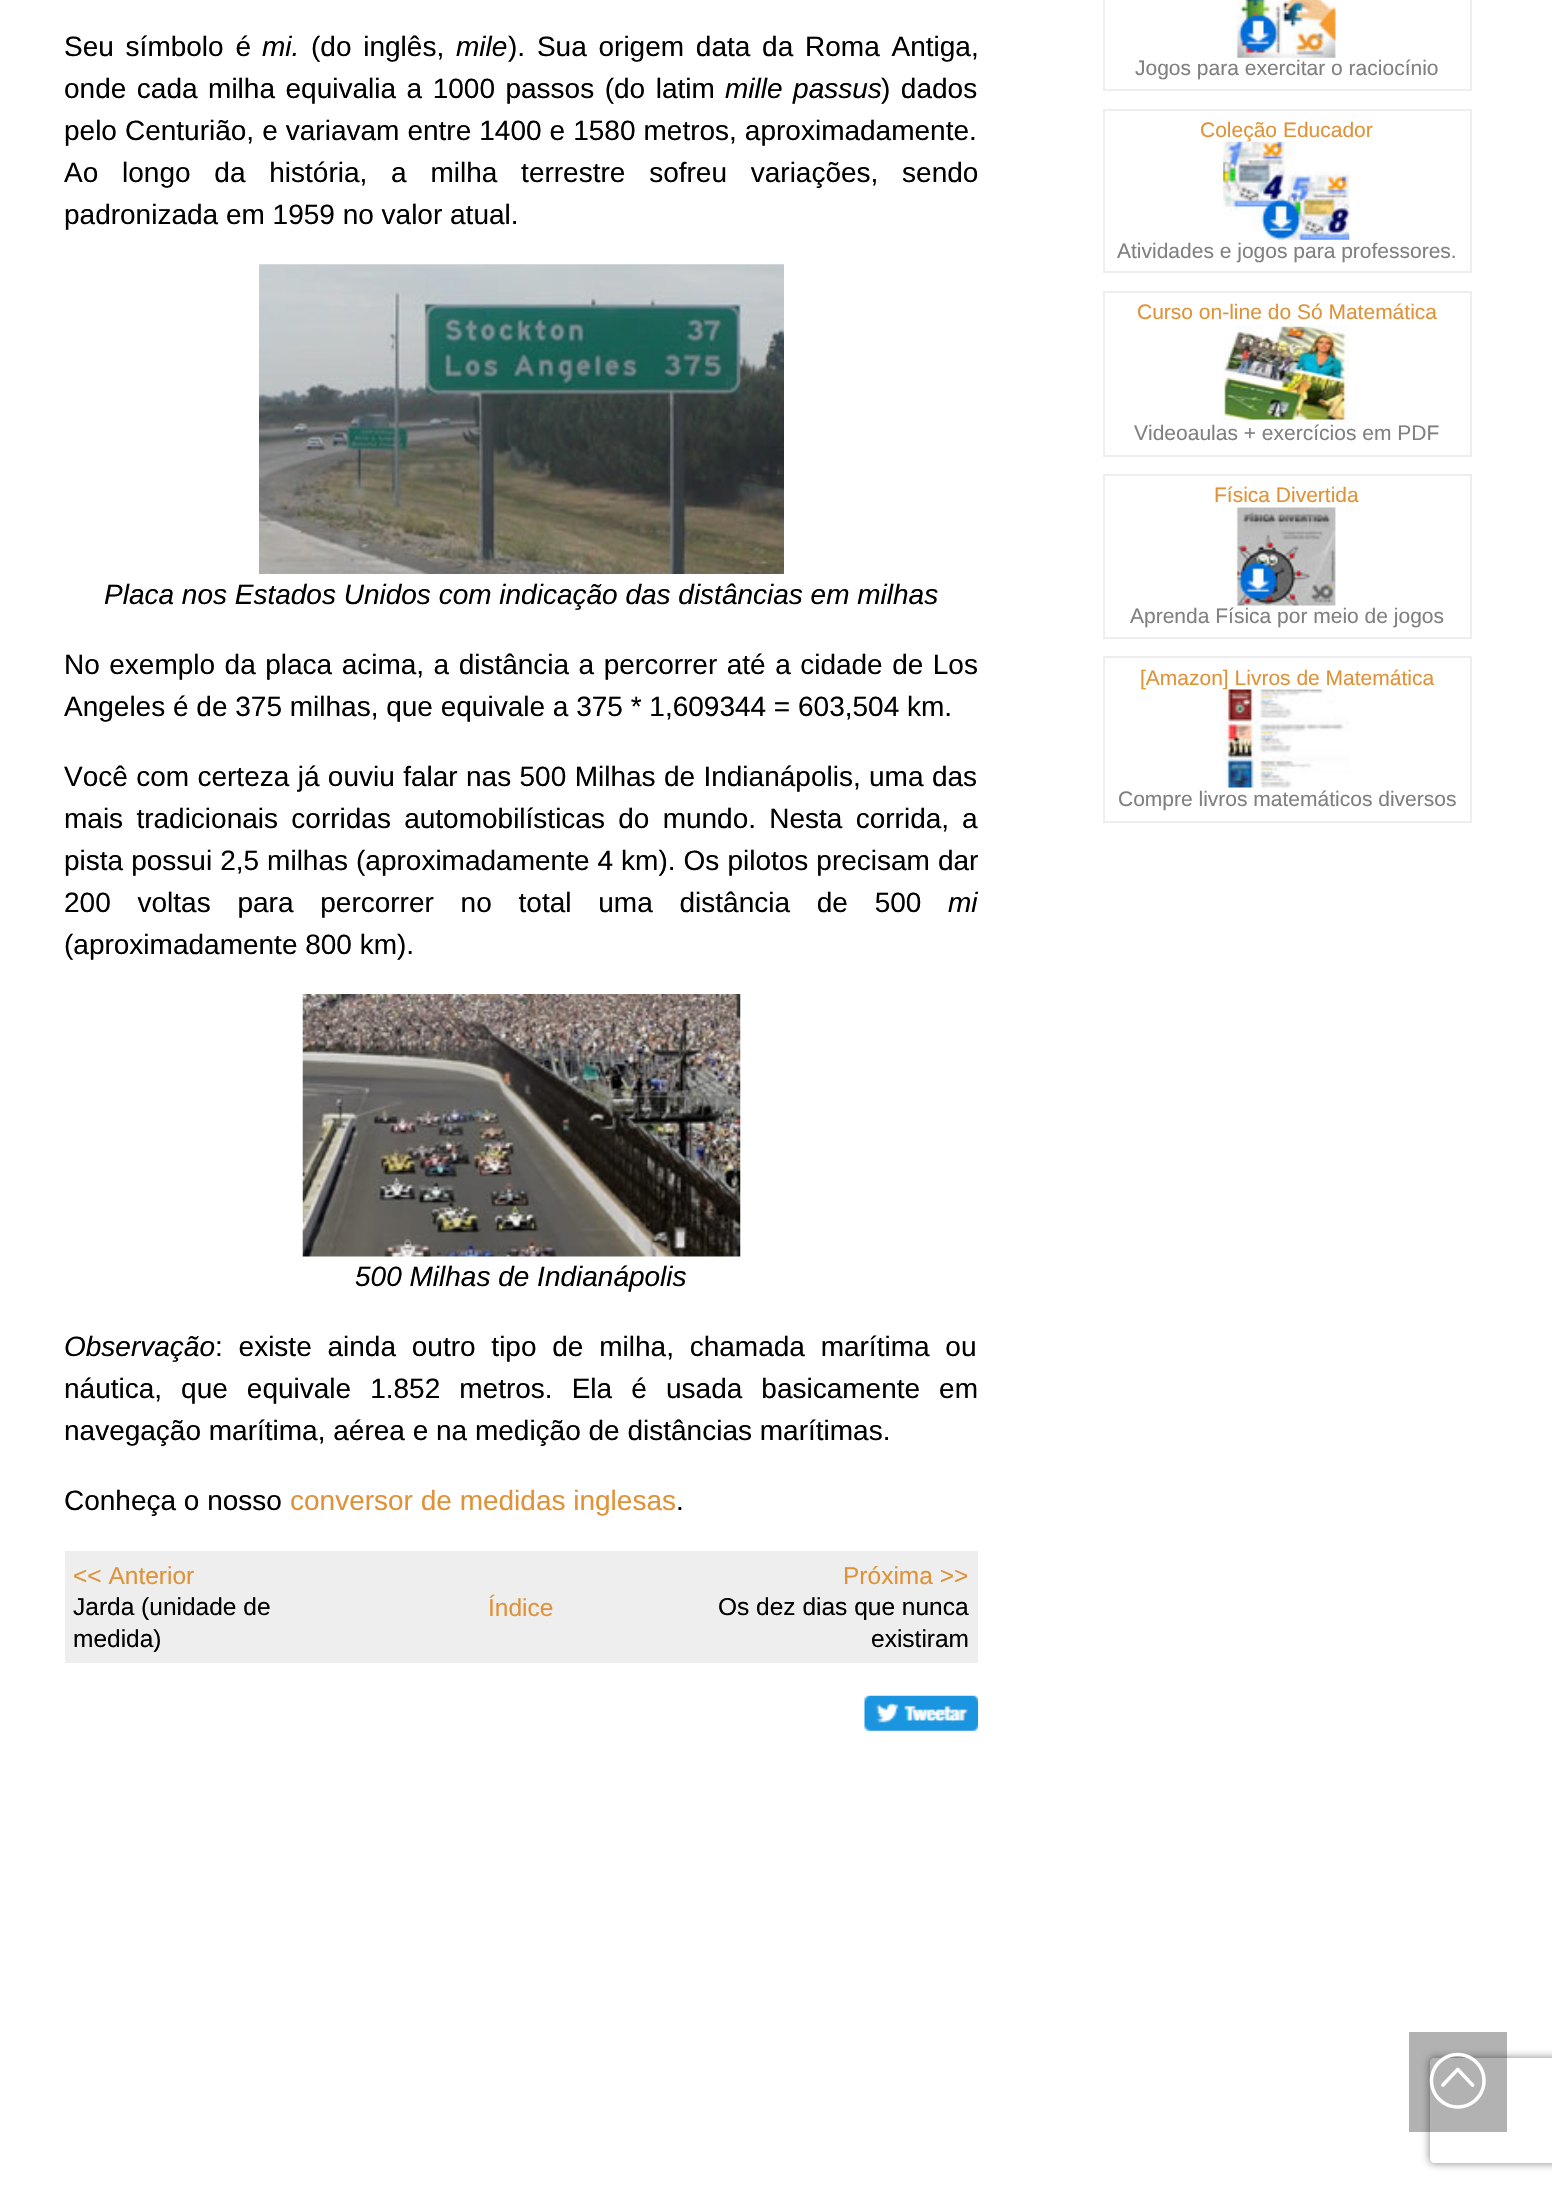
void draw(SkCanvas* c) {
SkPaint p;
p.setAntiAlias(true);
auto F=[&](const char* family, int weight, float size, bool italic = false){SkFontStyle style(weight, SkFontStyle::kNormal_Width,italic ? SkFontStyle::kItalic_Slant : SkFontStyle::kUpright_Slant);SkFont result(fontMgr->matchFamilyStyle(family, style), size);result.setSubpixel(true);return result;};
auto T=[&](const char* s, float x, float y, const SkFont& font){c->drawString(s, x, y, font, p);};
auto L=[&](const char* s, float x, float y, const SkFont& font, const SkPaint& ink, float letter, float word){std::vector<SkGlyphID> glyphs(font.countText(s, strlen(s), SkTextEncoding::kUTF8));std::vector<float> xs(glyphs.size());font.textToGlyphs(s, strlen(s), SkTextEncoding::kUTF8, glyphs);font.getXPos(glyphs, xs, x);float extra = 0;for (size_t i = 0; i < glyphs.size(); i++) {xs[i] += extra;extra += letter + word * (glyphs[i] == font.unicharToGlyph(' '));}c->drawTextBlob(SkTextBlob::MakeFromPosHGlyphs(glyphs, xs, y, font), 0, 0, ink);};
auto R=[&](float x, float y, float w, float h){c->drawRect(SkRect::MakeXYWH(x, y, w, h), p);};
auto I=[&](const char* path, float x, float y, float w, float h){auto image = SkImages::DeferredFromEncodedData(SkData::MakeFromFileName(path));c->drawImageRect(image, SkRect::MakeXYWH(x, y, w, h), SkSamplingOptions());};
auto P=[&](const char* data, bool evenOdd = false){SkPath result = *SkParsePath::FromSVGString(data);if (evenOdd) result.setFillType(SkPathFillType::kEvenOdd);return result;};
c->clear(0xffffffff);
auto f1 = F("Liberation Sans",400,28);
p.setColor(0xff000000);
L("Seu símbolo é",64,56,f1,p,0,4);
auto f2 = F("Liberation Sans",400,28,true);
T("mi.",262,56,f2);
L("(do inglês,",311,56,f1,p,0,4);
T("mile",456,56,f2);
L("). Sua origem data da Roma Antiga,",508,56,f1,p,0,4);
L("onde cada milha equivalia a 1000 passos (do latim",64,98,f1,p,0,2.75);
L("mille passus",725,98,f2,p,0,2.75);
L(") dados",881,98,f1,p,0,2.75);
L("pelo Centurião, e variavam entre 1400 e 1580 metros, aproximadamente.",64,140,f1,p,0,.25);
L("Ao longo da história, a milha terrestre sofreu variações, sendo",64,182,f1,p,0,16);
T("padronizada em 1959 no valor atual.",64,224,f1);
I("1.png",259,264,525,310);
T("Placa nos Estados Unidos com indicação das distâncias em milhas",104,604,f2);
L("No exemplo da placa acima, a distância a percorrer até a cidade de Los",64,674,f1,p,0,1.7);
T("Angeles é de 375 milhas, que equivale a 375 * 1,609344 = 603,504 km.",64,716,f1);
L("Você com certeza já ouviu falar nas 500 Milhas de Indianápolis, uma das",64,786,f1,p,0,.6);
L("mais tradicionais corridas automobilísticas do mundo. Nesta corrida,",64,828,f1,p,0,5.5);
T("a",962,828,f1);
L("pista possui 2,5 milhas (aproximadamente 4 km). Os pilotos precisam dar",64,870,f1,p,0,.25);
L("200 voltas para percorrer no total uma distância de 500",64,912,f1,p,0,19);
T("mi",948,912,f2);
T("(aproximadamente 800 km).",64,954,f1);
I("2.png",302,994,439,263);
T("500 Milhas de Indianápolis",355,1286,f2);
T("Observação",64,1356,f2);
L(": existe ainda outro tipo de milha, chamada marítima ou",215,1356,f1,p,0,8);
L("náutica, que equivale 1.852 metros. Ela é",64,1398,f1,p,0,11.25);
L("usada basicamente em",666,1398,f1,p,0,11.25);
T("navegação marítima, aérea e na medição de distâncias marítimas.",64,1440,f1);
T("Conheça o nosso",64,1510,f1);
p.setColor(0xffdf9238);
T("conversor de medidas inglesas",290,1510,f1);
p.setColor(0xff000000);
T(".",676,1510,f1);
p.setColor(0xffeeeeee);
R(65,1551,913,112);
auto f3 = F("Liberation Sans",400,24.5);
p.setColor(0xffdf9238);
T("<< Anterior",73,1584,f3);
p.setColor(0xff000000);
T("Jarda (unidade de",73,1615,f3);
T("medida)",73,1647,f3);
p.setColor(0xffdf9238);
T("Índice",488,1616,f3);
T("Próxima >>",843,1584,f3);
p.setColor(0xff000000);
T("Os dez dias que nunca",718,1615,f3);
T("existiram",871,1647,f3);
I("3.png",864,1695,115,36);
p.setStroke(true);
p.setStrokeWidth(2);
p.setColor(0xffeeeeee);
c->drawRect(SkRect::MakeXYWH(1104,-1,367,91),p);
I("4.png",1236,0,100,58);
auto f4 = F("Liberation Sans",400,21);
p.setStroke(false);
p.setColor(0xff808080);
T("Jogos para exercitar o raciocínio",1135,75,f4);
p.setStroke(true);
p.setColor(0xffeeeeee);
c->drawRect(SkRect::MakeXYWH(1104,110,367,162),p);
p.setStroke(false);
p.setColor(0xffdf9238);
T("Coleção Educador",1200,137,f4);
I("5.png",1223,141,127,99);
p.setColor(0xff808080);
T("Atividades e jogos para professores.",1117,258,f4);
p.setStroke(true);
p.setColor(0xffeeeeee);
c->drawRect(SkRect::MakeXYWH(1104,292,367,164),p);
p.setStroke(false);
p.setColor(0xffdf9238);
T("Curso on-line do Só Matemática",1137,319,f4);
I("6.png",1223,325,127,99);
p.setColor(0xff808080);
T("Videoaulas + exercícios em PDF",1134,440,f4);
p.setStroke(true);
p.setColor(0xffeeeeee);
c->drawRect(SkRect::MakeXYWH(1104,475,367,163),p);
p.setStroke(false);
p.setColor(0xffdf9238);
T("Física Divertida",1214,502,f4);
I("7.png",1236,507,100,99);
p.setColor(0xff808080);
T("Aprenda Física por meio de jogos",1130,623,f4);
p.setStroke(true);
p.setColor(0xffeeeeee);
c->drawRect(SkRect::MakeXYWH(1104,657,367,165),p);
p.setStroke(false);
p.setColor(0xffdf9238);
T("[Amazon] Livros de Matemática",1140,685,f4);
I("8.png",1223,689,126,99);
p.setColor(0xff808080);
T("Compre livros matemáticos diversos",1118,806,f4);
c->save();
c->clipPath(P("M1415 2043h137v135h-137zm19 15h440c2 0 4 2 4 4v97c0 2-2 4-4 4h-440c-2 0-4-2-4-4v-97c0-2 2-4 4-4z",true),true);
p.setMaskFilter(SkMaskFilter::MakeBlur(kNormal_SkBlurStyle, 4.5));
c->drawRoundRect(SkRect::MakeXYWH(1430,2058,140,105),4,4,p);
p.setMaskFilter(nullptr);
c->restore();
p.setColor(0x4d000000);
R(1409,2032,98,100);
I("9.png",1429,2052,57,57);
}
